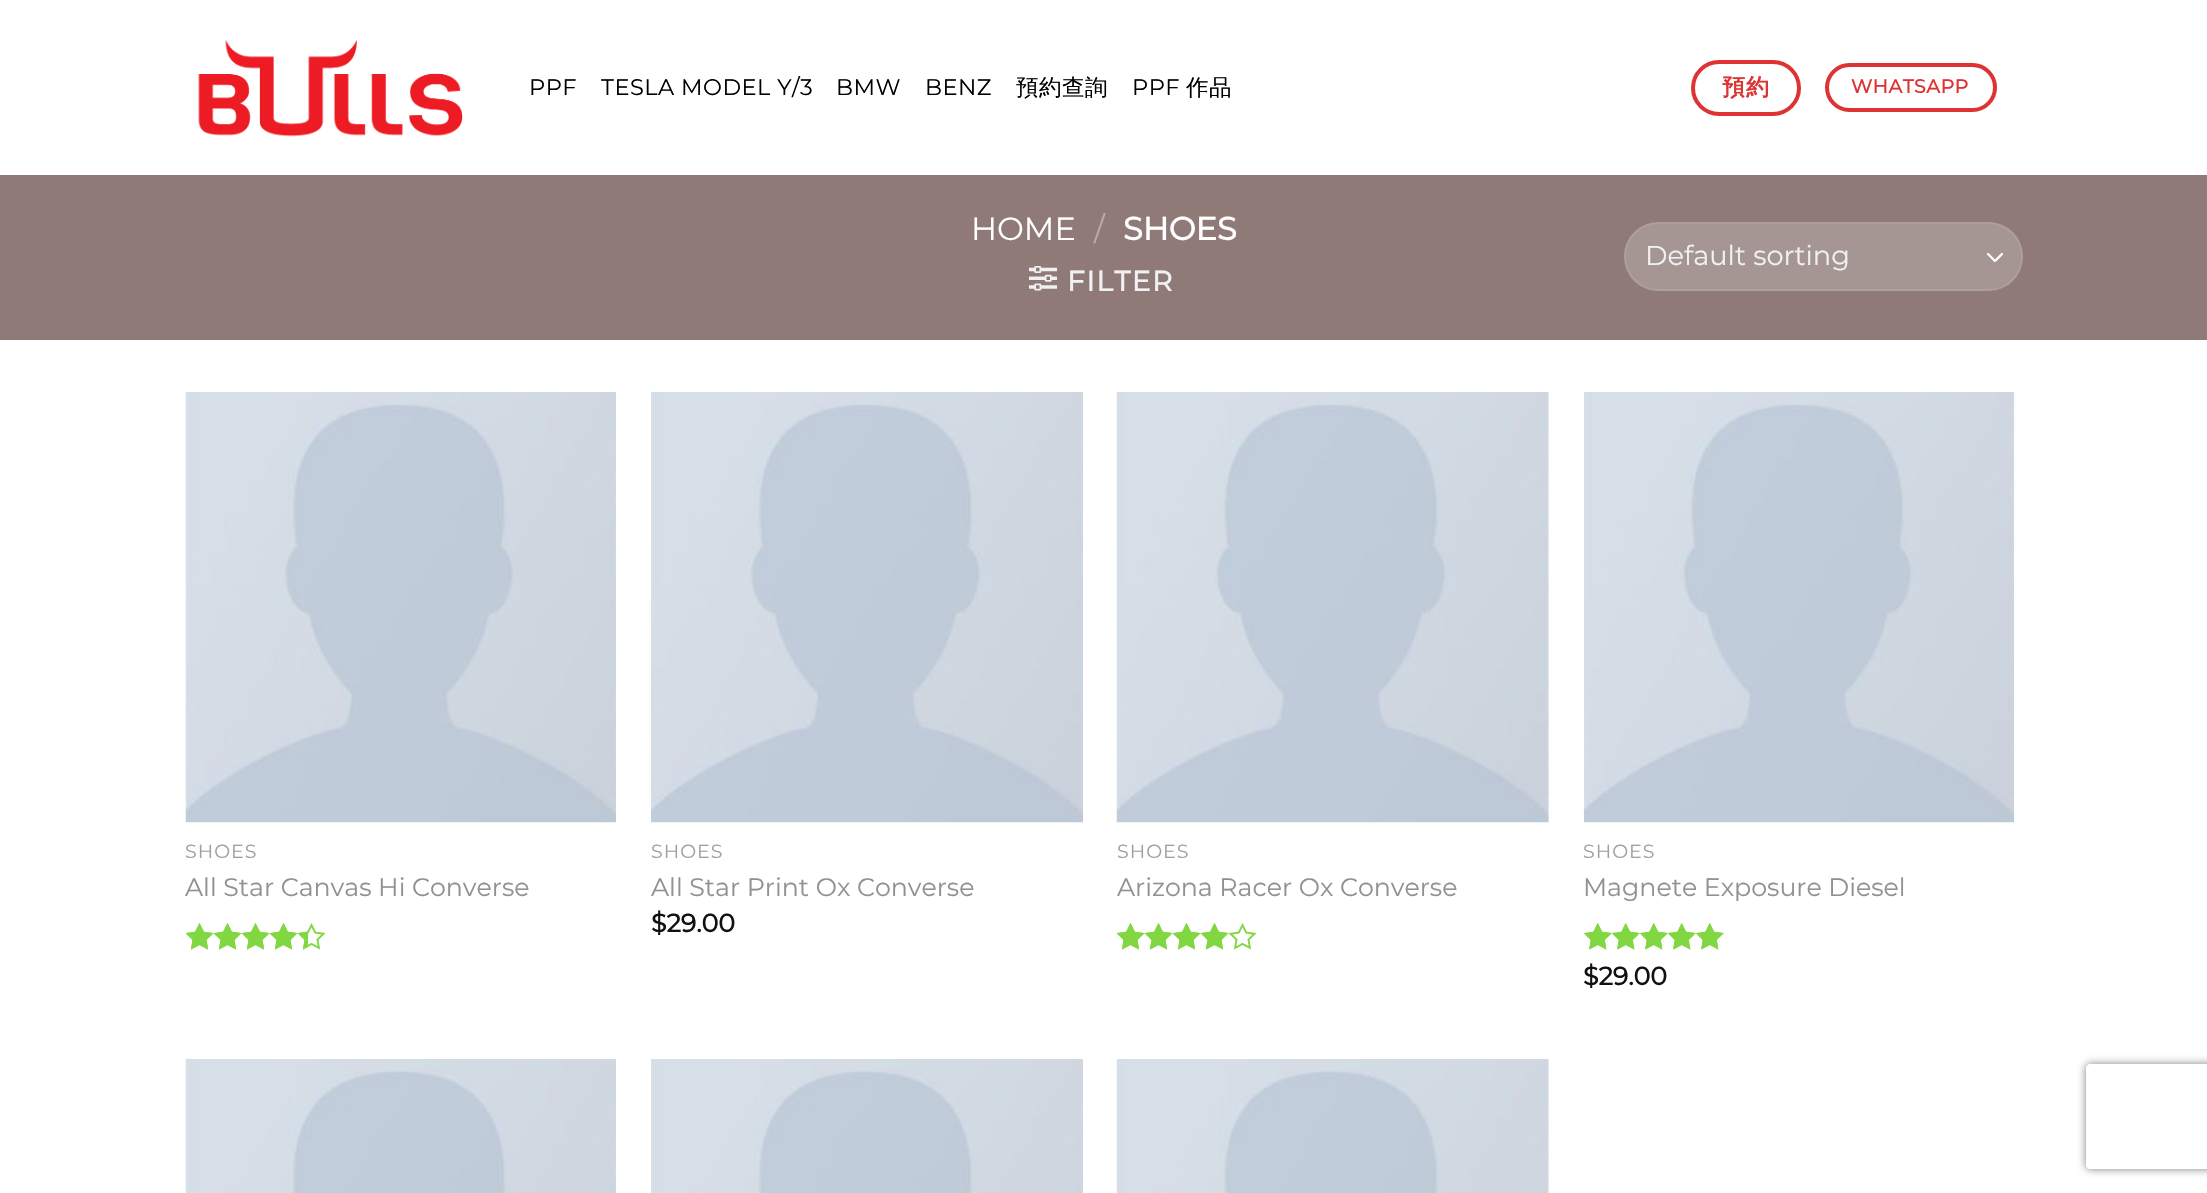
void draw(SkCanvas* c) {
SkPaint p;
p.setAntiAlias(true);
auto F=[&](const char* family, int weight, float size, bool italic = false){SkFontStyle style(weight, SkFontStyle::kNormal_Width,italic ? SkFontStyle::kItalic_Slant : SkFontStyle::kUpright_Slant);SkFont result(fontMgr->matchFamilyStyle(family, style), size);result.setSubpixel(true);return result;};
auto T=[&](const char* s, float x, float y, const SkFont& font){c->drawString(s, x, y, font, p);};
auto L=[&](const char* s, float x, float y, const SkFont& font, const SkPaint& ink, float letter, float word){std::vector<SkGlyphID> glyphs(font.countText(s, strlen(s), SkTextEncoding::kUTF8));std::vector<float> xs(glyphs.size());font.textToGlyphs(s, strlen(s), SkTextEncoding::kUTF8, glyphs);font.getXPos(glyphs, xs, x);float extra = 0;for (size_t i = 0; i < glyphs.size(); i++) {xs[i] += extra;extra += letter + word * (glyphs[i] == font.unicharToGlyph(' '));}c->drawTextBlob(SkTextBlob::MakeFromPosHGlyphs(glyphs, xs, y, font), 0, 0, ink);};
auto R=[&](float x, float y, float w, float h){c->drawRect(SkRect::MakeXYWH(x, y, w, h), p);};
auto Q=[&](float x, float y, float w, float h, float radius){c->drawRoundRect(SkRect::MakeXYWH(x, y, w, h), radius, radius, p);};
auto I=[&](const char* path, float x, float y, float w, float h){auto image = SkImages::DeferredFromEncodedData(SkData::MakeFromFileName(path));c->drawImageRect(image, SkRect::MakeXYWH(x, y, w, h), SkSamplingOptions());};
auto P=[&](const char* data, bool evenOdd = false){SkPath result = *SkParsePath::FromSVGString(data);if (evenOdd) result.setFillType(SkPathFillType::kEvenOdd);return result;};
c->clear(0xffffffff);
I("1.png",198,39,265,98);
auto f1 = F("Montserrat",100,22.5);
p.setColor(0xff000000);
L("PPF",529,95,f1,p,.5,0);
L("TESLA MODEL Y/3",601,95,f1,p,.5,0);
L("BMW",836,95,f1,p,.5,0);
L("BENZ",925,95,f1,p,.5,0);
auto f2 = F("WenQuanYi Zen Hei",500,22.5);
L("預約查詢",1016,95,f2,p,.5,0);
L("PPF",1132,95,f1,p,.5,0);
L("作品",1186,95,f2,p,.5,0);
p.setStroke(true);
p.setStrokeWidth(4);
p.setColor(0xffdd3333);
c->drawRoundRect(SkRect::MakeXYWH(1693,62,106,52),26,26,p);
auto f3 = F("WenQuanYi Zen Hei",700,23);
p.setStroke(false);
L("預約",1722,95,f3,p,1,0);
p.setStroke(true);
c->drawRoundRect(SkRect::MakeXYWH(1827,65,168,45),22.5,22.5,p);
auto f4 = F("Montserrat",700,19);
p.setStroke(false);
L("WHATSAPP",1851,93,f4,p,.5,0);
p.setColor(0xff8f7a78);
R(0,175,2207,165);
auto f5 = F("Montserrat",100,32);
p.setColor(0xffffffff);
T("HOME",971,240,f5);
p.setColor(0xffb6a9a7);
T("/",1094,240,f5);
auto f6 = F("Montserrat",700,32);
p.setColor(0xffffffff);
T("SHOES",1123,240,f6);
I("2.png",1029,266,28,25);
auto f7 = F("Montserrat",700,28);
p.setColor(0xfff1f1f1);
L("FILTER",1067,291,f7,p,1.5,0);
p.setColor(0xffa59593);
Q(1624,222,399,69,34.5);
p.setStroke(true);
p.setStrokeWidth(2.3);
p.setStrokeCap(SkPaint::kRound_Cap);
p.setStrokeJoin(SkPaint::kRound_Join);
p.setColor(0xffffffff);
c->drawPath(P("M1988 254l7 7l7-7"),p);
p.setStrokeWidth(2);
p.setStrokeCap(SkPaint::kButt_Cap);
p.setStrokeJoin(SkPaint::kMiter_Join);
p.setColor(0x17ffffff);
c->drawRoundRect(SkRect::MakeXYWH(1625,223,397,67),33.5,33.5,p);
auto f8 = F("Montserrat",100,27.25);
p.setStroke(false);
p.setColor(0xfff1f1f1);
T("Default sorting",1645,265,f8);
I("3.png",185,392,431,431);
auto f9 = F("Montserrat",100,19);
p.setColor(0xffa0a0a0);
L("SHOES",185,858,f9,p,1,0);
auto f10 = F("Montserrat",100,25.25);
p.setColor(0xff919191);
T("All Star Canvas Hi Converse",185,896,f10);
I("4.png",186,923,140,27);
I("5.png",186,923,122,27);
I("6.png",651,392,433,431);
p.setColor(0xffa0a0a0);
L("SHOES",651,858,f9,p,1,0);
p.setColor(0xff919191);
T("All Star Print Ox Converse",651,896,f10);
auto f11 = F("Montserrat",700,25.25);
p.setColor(0xff111111);
T("$29.00",651,932,f11);
I("7.png",1116,392,433,431);
p.setColor(0xffa0a0a0);
L("SHOES",1117,858,f9,p,1,0);
p.setColor(0xff919191);
T("Arizona Racer Ox Converse",1117,896,f10);
I("4.png",1117,923,140,27);
I("8.png",1117,923,113,27);
I("9.png",1583,392,432,431);
p.setColor(0xffa0a0a0);
L("SHOES",1583,858,f9,p,1,0);
p.setColor(0xff919191);
T("Magnete Exposure Diesel",1583,896,f10);
I("10.png",1584,923,140,27);
I("11.png",1584,923,140,27);
p.setColor(0xff111111);
T("$29.00",1583,985,f11);
I("12.png",185,1059,431,134);
I("13.png",651,1059,432,134);
I("14.png",1116,1059,433,134);
c->save();
c->clipPath(P("M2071 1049h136v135h-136zm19 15h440c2 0 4 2 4 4v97c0 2-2 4-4 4h-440c-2 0-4-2-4-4v-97c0-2 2-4 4-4z",true),true);
p.setColor(0xff808080);
p.setMaskFilter(SkMaskFilter::MakeBlur(kNormal_SkBlurStyle, 4.5));
c->drawRoundRect(SkRect::MakeXYWH(2086,1064,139,105),4,4,p);
p.setMaskFilter(nullptr);
c->restore();
}
